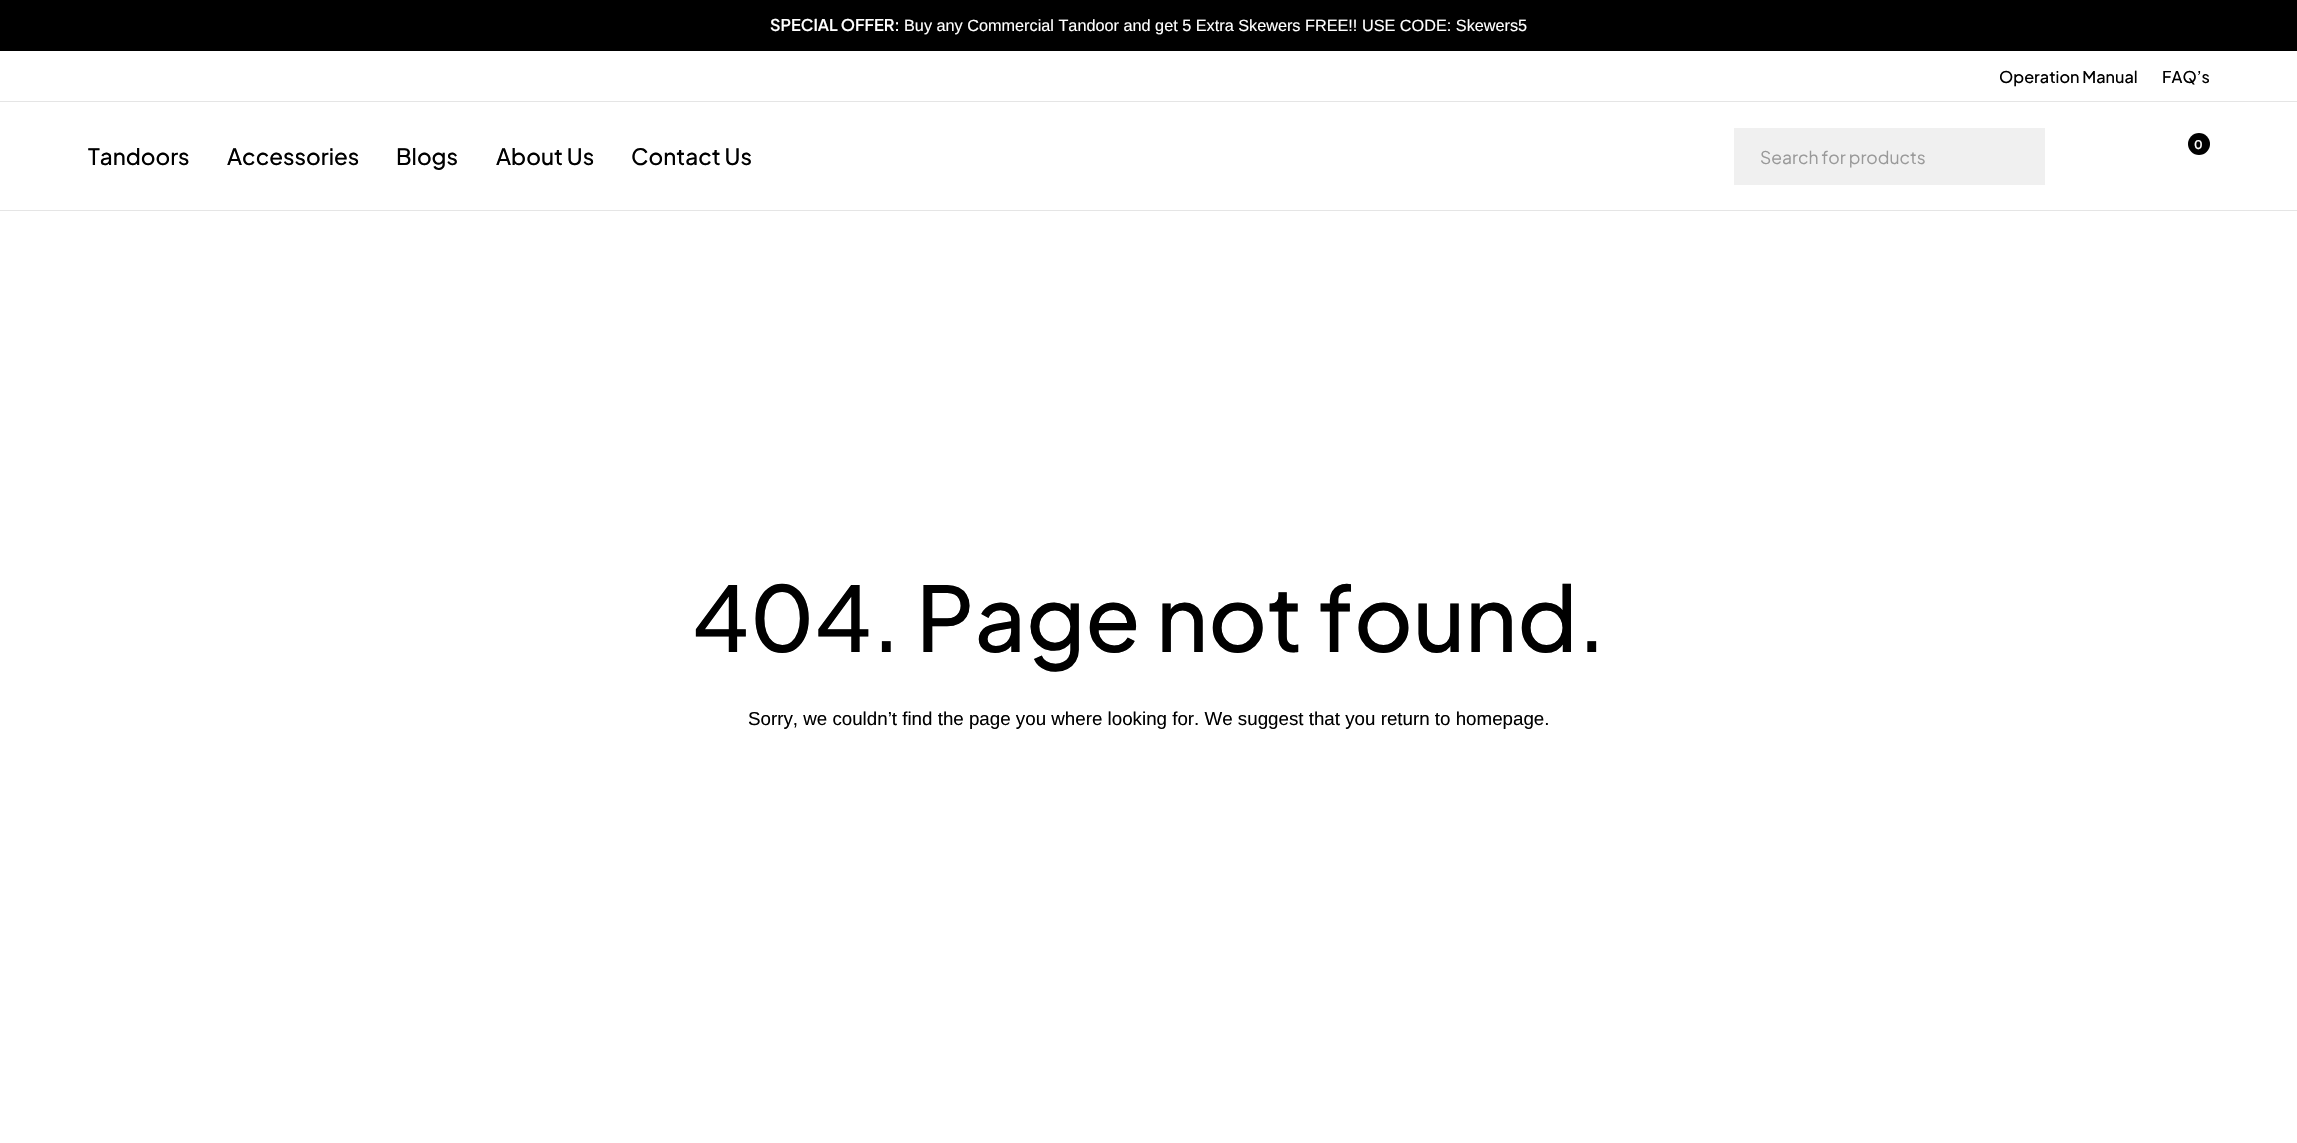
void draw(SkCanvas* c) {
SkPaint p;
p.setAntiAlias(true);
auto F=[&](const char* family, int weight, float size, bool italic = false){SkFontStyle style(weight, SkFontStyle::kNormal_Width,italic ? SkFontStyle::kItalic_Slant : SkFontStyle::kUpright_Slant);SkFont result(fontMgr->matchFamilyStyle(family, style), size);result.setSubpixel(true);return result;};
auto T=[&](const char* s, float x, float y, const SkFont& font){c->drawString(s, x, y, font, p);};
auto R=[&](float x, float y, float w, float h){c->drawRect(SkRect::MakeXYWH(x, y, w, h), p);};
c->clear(0xffffffff);
p.setColor(0xff000000);
R(0,0,2297,51);
auto f1 = F("Plus Jakarta Sans",600,16.25);
p.setColor(0xffffffff);
T("SPECIAL OFFER:",770,31,f1);
auto f2 = F("Liberation Sans",400,16.25);
T("Buy any Commercial Tandoor and get 5 Extra Skewers FREE!! USE CODE: Skewers5",904,31,f2);
p.setColor(0xffe5e5e5);
R(0,101,2297,1);
auto f3 = F("Plus Jakarta Sans",500,16.25);
p.setColor(0xff000000);
T("Operation Manual",1999,83,f3);
T("FAQ’s",2162,83,f3);
auto f4 = F("Plus Jakarta Sans",500,22.5);
T("Tandoors",88,165,f4);
T("Accessories",227,165,f4);
T("Blogs",396,165,f4);
T("About Us",496,165,f4);
T("Contact Us",631,165,f4);
c->drawCircle(2199,144,11,p);
auto f5 = F("Plus Jakarta Sans",600,12);
p.setColor(0xffffffff);
T("0",2194,149,f5);
p.setColor(0xfff0f0f0);
R(1734,128,311,57);
auto f6 = F("Plus Jakarta Sans",400,17.5);
p.setColor(0xff999999);
T("Search for products",1760,164,f6);
p.setColor(0xffe5e5e5);
R(0,210,2297,1);
auto f7 = F("Plus Jakarta Sans",500,90);
p.setColor(0xff000000);
T("404. Page not found.",692,652,f7);
auto f8 = F("Liberation Sans",400,18.75);
T("Sorry, we couldn’t find the page you where looking for. We suggest that you return to homepage.",748,725,f8);
}
